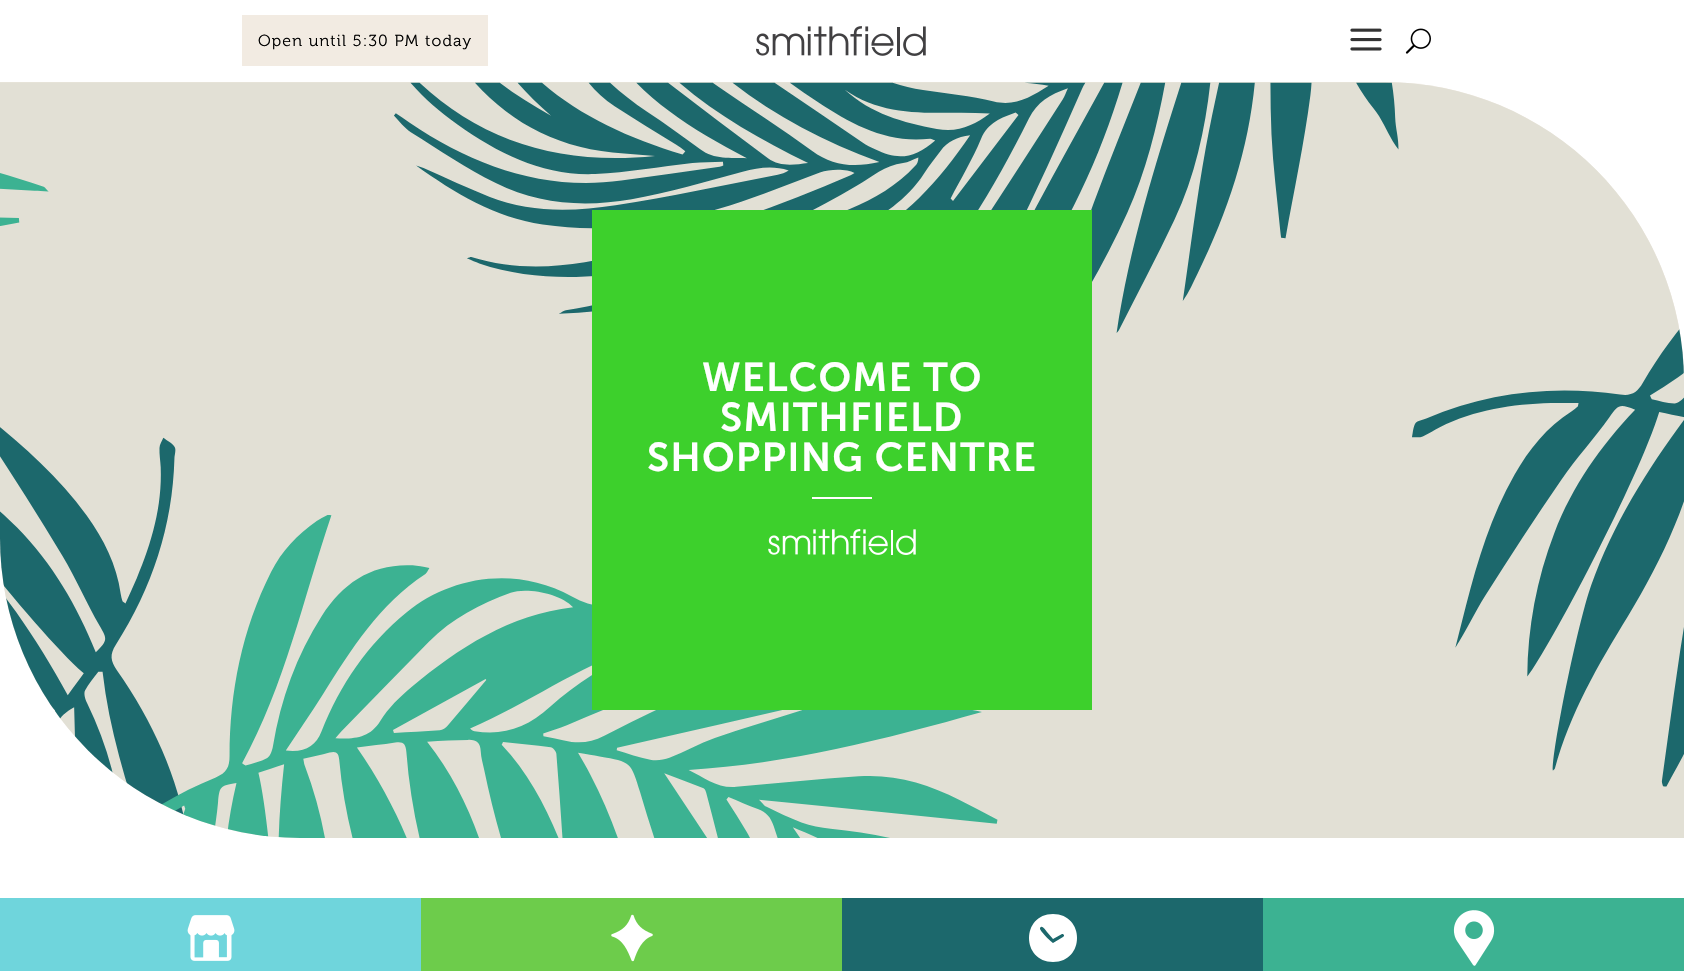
void draw(SkCanvas* c) {
SkPaint p;
p.setAntiAlias(true);
auto F=[&](const char* family, int weight, float size, bool italic = false){SkFontStyle style(weight, SkFontStyle::kNormal_Width,italic ? SkFontStyle::kItalic_Slant : SkFontStyle::kUpright_Slant);SkFont result(fontMgr->matchFamilyStyle(family, style), size);result.setSubpixel(true);return result;};
auto L=[&](const char* s, float x, float y, const SkFont& font, const SkPaint& ink, float letter, float word){std::vector<SkGlyphID> glyphs(font.countText(s, strlen(s), SkTextEncoding::kUTF8));std::vector<float> xs(glyphs.size());font.textToGlyphs(s, strlen(s), SkTextEncoding::kUTF8, glyphs);font.getXPos(glyphs, xs, x);float extra = 0;for (size_t i = 0; i < glyphs.size(); i++) {xs[i] += extra;extra += letter + word * (glyphs[i] == font.unicharToGlyph(' '));}c->drawTextBlob(SkTextBlob::MakeFromPosHGlyphs(glyphs, xs, y, font), 0, 0, ink);};
auto R=[&](float x, float y, float w, float h){c->drawRect(SkRect::MakeXYWH(x, y, w, h), p);};
auto I=[&](const char* path, float x, float y, float w, float h){auto image = SkImages::DeferredFromEncodedData(SkData::MakeFromFileName(path));c->drawImageRect(image, SkRect::MakeXYWH(x, y, w, h), SkSamplingOptions());};
auto P=[&](const char* data, bool evenOdd = false){SkPath result = *SkParsePath::FromSVGString(data);if (evenOdd) result.setFillType(SkPathFillType::kEvenOdd);return result;};
c->clear(0xffffffff);
p.setColor(0xfff2ebe2);
R(242,15,246,51);
auto f1 = F("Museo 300",300,16);
p.setColor(0xff000000);
L("Open until 5:30 PM today",258,46,f1,p,1.15,0);
I("1.png",756,26,170,30);
I("2.png",1350,28,32,23);
I("3.png",1405,28,26,26);
p.setColor(0xfff2ebe2);
c->drawPath(P("M0 82h1384c165.5 0 300 134.5 300 300v456h-1384c-165.5 0-300-134.5-300-300z"),p);
I("4.png",0,82,1684,756);
p.setColor(0xff3dd02c);
R(592,210,500,500);
auto f2 = F("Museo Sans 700",600,40);
p.setColor(0xffffffff);
L("WELCOME TO",702,391,f2,p,1.15,0);
L("SMITHFIELD",720,431,f2,p,1.15,0);
L("SHOPPING CENTRE",647,471,f2,p,1.15,0);
R(812,497,60,2);
I("5.png",768,529,148,26);
p.setColor(0xff6fd5dc);
R(0,898,421,73);
I("6.png",187,915,48,46);
p.setColor(0xff6dcc4b);
R(421,898,421,73);
I("7.png",611,914,42,48);
p.setColor(0xff1c686c);
R(842,898,421,73);
p.setColor(0xffffffff);
c->drawPath(P("M1053 962c-32 0-32-48 0-48c32 0 32 48 0 48m10-25c2-1 1-3-1-3l-9 5l-6-7c-1-1-5-8-7-4c-1 2 10 13 13 15z"),p);
p.setColor(0xff3cb292);
R(1263,898,421,73);
I("8.png",1453,910,42,56);
}
